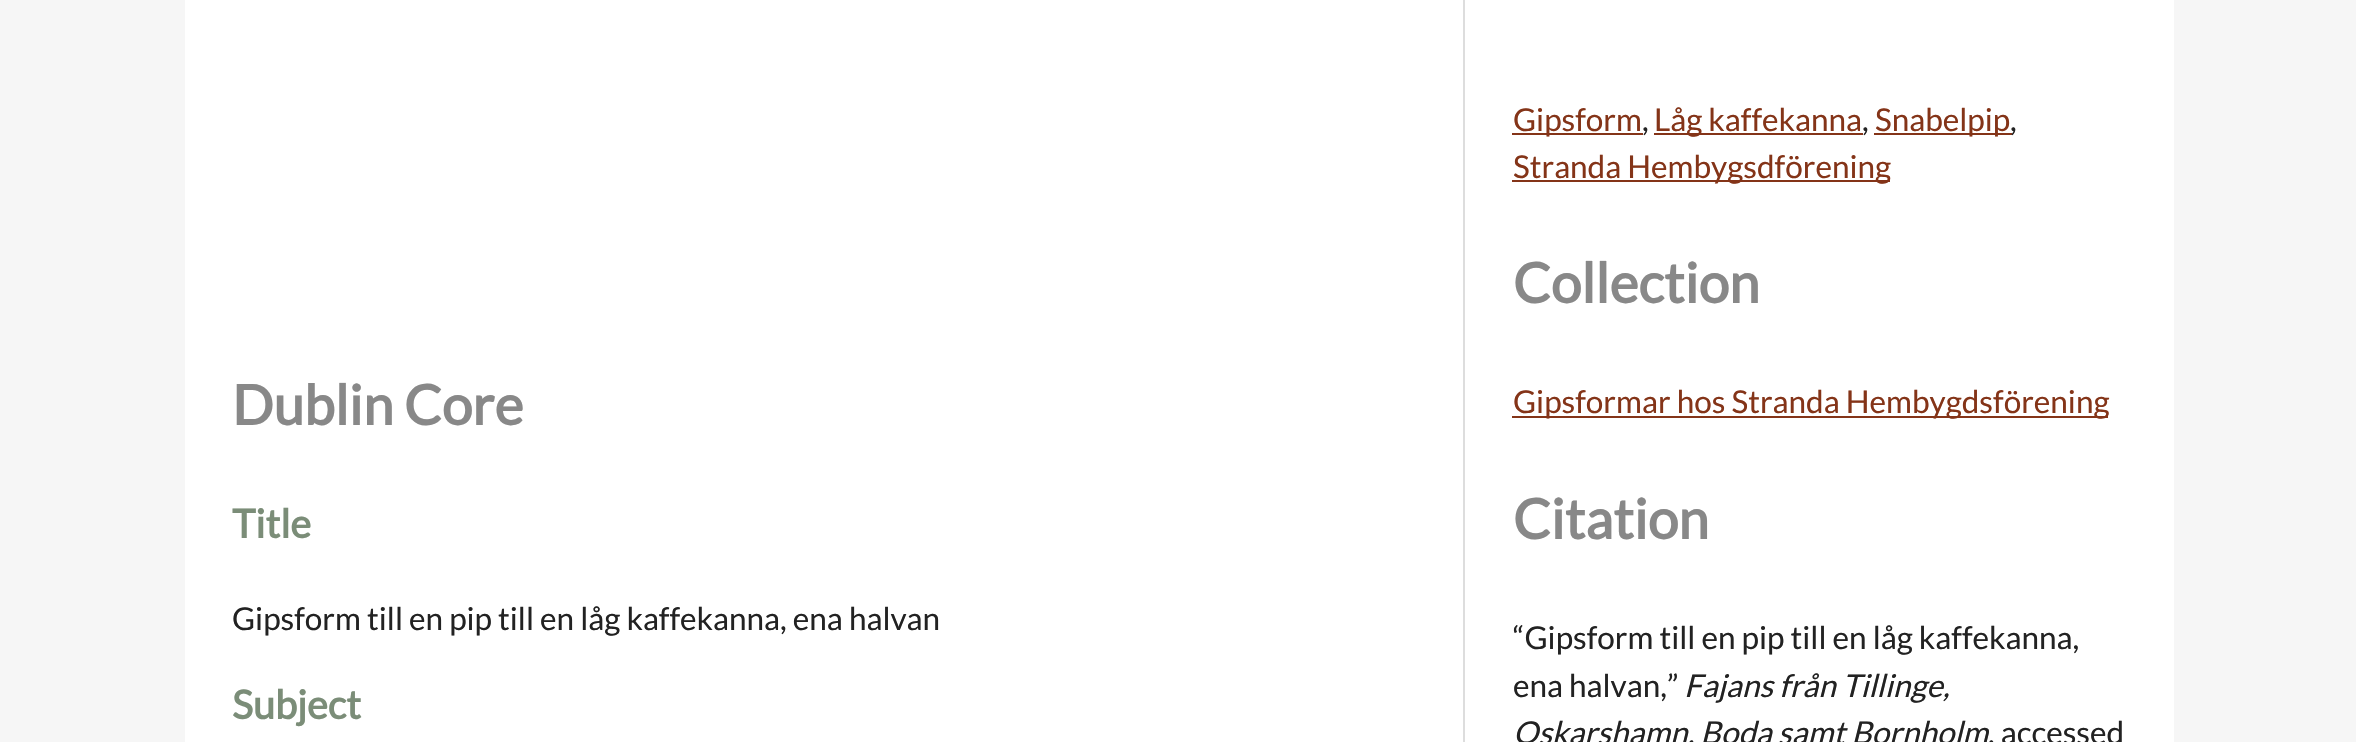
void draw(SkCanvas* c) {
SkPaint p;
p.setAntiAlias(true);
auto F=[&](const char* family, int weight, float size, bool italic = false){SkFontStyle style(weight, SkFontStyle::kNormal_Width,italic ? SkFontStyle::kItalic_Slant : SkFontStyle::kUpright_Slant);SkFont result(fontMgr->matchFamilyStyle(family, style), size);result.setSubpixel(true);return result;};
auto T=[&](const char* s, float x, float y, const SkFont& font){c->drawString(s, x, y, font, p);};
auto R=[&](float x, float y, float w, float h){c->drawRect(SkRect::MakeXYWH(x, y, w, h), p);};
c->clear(0xfff6f6f6);
p.setColor(0xffffffff);
R(185,0,1989,742);
auto f1 = F("Lato",700,55);
p.setColor(0xff888888);
T("Dublin Core",232,425,f1);
auto f2 = F("Lato",700,39.5);
p.setColor(0xff7b8d78);
T("Title",232,538,f2);
auto f3 = F("Lato",400,31.5);
p.setColor(0xff222222);
T("Gipsform till en pip till en låg kaffekanna, ena halvan",232,630,f3);
p.setColor(0xff7b8d78);
T("Subject",232,719,f2);
p.setColor(0xffdddddd);
R(1463,0,2,742);
p.setColor(0xff843418);
R(1512,133,131,2);
T("Gipsform",1513,131,f3);
p.setColor(0xff222222);
T(",",1642,131,f3);
p.setColor(0xff843418);
R(1654,133,209,2);
T("Låg kaffekanna",1654,131,f3);
p.setColor(0xff222222);
T(",",1862,131,f3);
p.setColor(0xff843418);
R(1874,133,138,2);
T("Snabelpip",1875,131,f3);
p.setColor(0xff222222);
T(",",2010,131,f3);
p.setColor(0xff843418);
R(1512,180,378,2);
T("Stranda Hembygsdförening",1513,178,f3);
p.setColor(0xff888888);
T("Collection",1513,303,f1);
p.setColor(0xff843418);
R(1512,416,596,2);
T("Gipsformar hos Stranda Hembygdsförening",1513,413,f3);
p.setColor(0xff888888);
T("Citation",1513,539,f1);
p.setColor(0xff222222);
T("“Gipsform till en pip till en låg kaffekanna,",1513,649,f3);
T("ena halvan,”",1513,697,f3);
auto f4 = F("Lato",400,31.5,true);
T("Fajans från Tillinge,",1684,697,f4);
T("Oskarshamn, Boda samt Bornholm",1513,744,f4);
T(", accessed",1988,744,f3);
}
